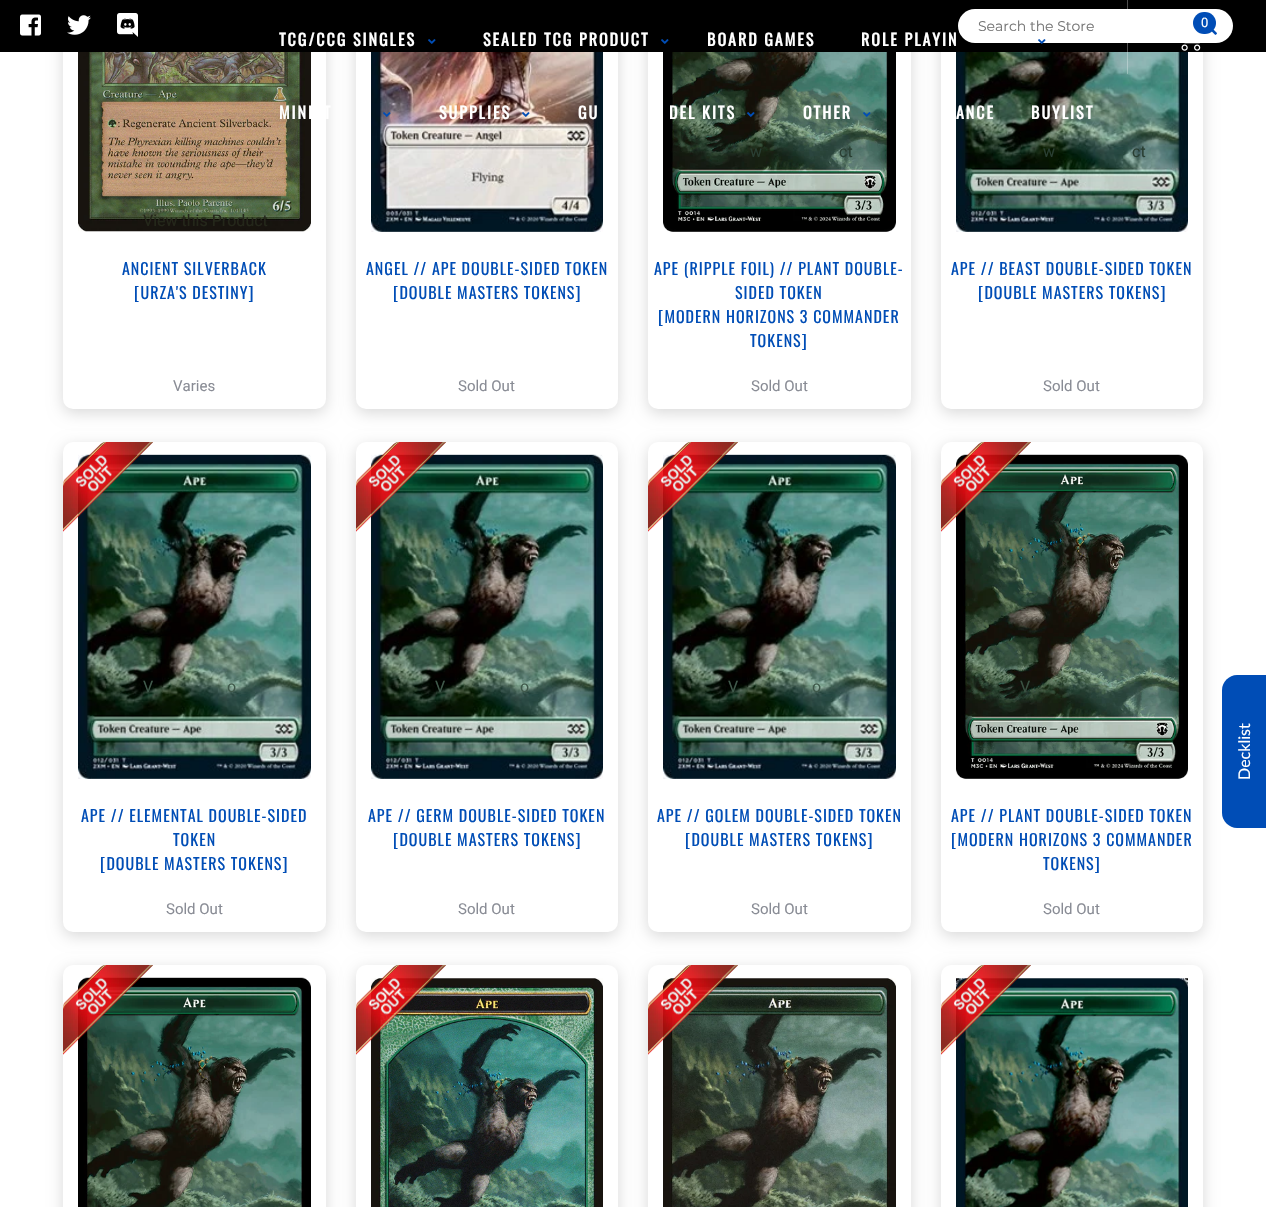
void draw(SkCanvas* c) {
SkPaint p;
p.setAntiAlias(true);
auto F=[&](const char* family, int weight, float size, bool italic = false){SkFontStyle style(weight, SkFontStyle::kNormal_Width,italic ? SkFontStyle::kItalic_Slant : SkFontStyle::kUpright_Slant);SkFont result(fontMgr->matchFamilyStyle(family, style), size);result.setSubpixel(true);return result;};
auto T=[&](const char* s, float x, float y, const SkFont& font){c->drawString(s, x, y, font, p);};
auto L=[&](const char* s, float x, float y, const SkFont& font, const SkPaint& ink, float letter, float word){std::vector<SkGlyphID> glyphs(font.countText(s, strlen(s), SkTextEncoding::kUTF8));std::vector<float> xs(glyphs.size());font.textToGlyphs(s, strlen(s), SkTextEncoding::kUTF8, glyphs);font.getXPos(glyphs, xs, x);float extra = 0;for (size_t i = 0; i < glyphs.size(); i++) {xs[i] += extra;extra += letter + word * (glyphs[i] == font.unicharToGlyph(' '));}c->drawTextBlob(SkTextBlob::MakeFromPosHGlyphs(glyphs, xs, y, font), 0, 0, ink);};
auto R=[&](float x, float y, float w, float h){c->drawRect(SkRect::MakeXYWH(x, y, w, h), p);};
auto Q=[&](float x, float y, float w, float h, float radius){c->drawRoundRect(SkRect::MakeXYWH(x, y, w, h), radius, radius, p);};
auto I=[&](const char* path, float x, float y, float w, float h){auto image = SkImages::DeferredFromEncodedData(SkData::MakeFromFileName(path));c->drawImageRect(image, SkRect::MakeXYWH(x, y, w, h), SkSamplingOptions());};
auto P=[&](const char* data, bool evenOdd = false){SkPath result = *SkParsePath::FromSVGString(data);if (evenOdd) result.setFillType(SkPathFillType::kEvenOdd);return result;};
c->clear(0xffffffff);
p.setColor(0x26000000);
p.setMaskFilter(SkMaskFilter::MakeBlur(kNormal_SkBlurStyle, 7.5));
c->drawRoundRect(SkRect::MakeXYWH(63,-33,263,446),10,10,p);
p.setMaskFilter(nullptr);
p.setColor(0xffffffff);
Q(63,-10,263,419,10);
p.setColor(0x26000000);
p.setMaskFilter(SkMaskFilter::MakeBlur(kNormal_SkBlurStyle, 7.5));
c->drawRoundRect(SkRect::MakeXYWH(356,-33,262,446),10,10,p);
p.setMaskFilter(nullptr);
p.setColor(0xffffffff);
Q(356,-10,262,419,10);
p.setColor(0x26000000);
p.setMaskFilter(SkMaskFilter::MakeBlur(kNormal_SkBlurStyle, 7.5));
c->drawRoundRect(SkRect::MakeXYWH(648,-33,263,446),10,10,p);
p.setMaskFilter(nullptr);
p.setColor(0xffffffff);
Q(648,-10,263,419,10);
p.setColor(0x26000000);
p.setMaskFilter(SkMaskFilter::MakeBlur(kNormal_SkBlurStyle, 7.5));
c->drawRoundRect(SkRect::MakeXYWH(941,-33,262,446),10,10,p);
p.setMaskFilter(nullptr);
p.setColor(0xffffffff);
Q(941,-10,262,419,10);
p.setColor(0xff000000);
R(0,0,1266,52);
p.setColor(0xffffffff);
Q(958,9,275,34,17);
I("15.png",956,52,232,180);
p.setColor(0x4dffffff);
R(1127,0,1,74);
I("1.png",1181,27,22,24);
I("11.png",1211,29,6,6);
p.setColor(0xff004db6);
Q(1193,12,23,22,11);
auto f1 = F("Roboto",400,13);
p.setColor(0xffffffff);
T("0",1201,27,f1);
auto f2 = F("Oswald",700,16);
L("TCG/CCG SINGLES",279,46,f2,p,2,0);
I("2.png",428,39,8,5);
L("SEALED TCG PRODUCT",483,46,f2,p,2,0);
I("2.png",661,39,8,5);
L("BOARD GAMES",707,46,f2,p,2,0);
L("ROLE PLAYIN",861,46,f2,p,2,0);
I("3.png",1038,39,8,5);
I("12.png",78,52,233,180);
L("MINIAT",279,119,f2,p,2,0);
I("13.png",371,52,232,180);
I("4.png",383,112,8,5);
L("SUPPLIES",439,119,f2,p,2,0);
I("5.png",522,112,8,5);
L("GU",578,119,f2,p,2,0);
I("14.png",663,52,233,180);
L("DEL KITS",669,119,f2,p,2,0);
I("6.png",747,112,8,5);
L("OTHER",803,119,f2,p,2,0);
I("7.png",863,112,8,5);
L("ANCE",956,119,f2,p,2,0);
L("BUYLIST",1031,119,f2,p,2,0);
I("8.png",20,14,21,22);
I("9.png",67,15,24,20);
I("10.png",117,13,21,24);
auto f3 = F("Montserrat",400,14);
p.setColor(0xff757575);
T("Search the Store",978,31,f3);
auto f4 = F("Roboto",400,16);
p.setColor(0xff24271a);
T("View this Product",143,226,f4);
auto f5 = F("Oswald",400,16);
p.setColor(0xff004db6);
L("ANCIENT SILVERBACK",122,275,f5,p,1,0);
L("[URZA'S DESTINY]",134,299,f5,p,1,0);
auto f6 = F("Roboto",400,15);
p.setColor(0xff898c95);
T("Varies",173,391,f6);
p.setColor(0xff004db6);
L("ANGEL // APE DOUBLE-SIDED TOKEN",366,275,f5,p,1,0);
L("[DOUBLE MASTERS TOKENS]",393,299,f5,p,1,0);
p.setColor(0xff898c95);
T("Sold Out",458,391,f6);
p.setColor(0xff293e32);
T("w",750,157,f4);
T("ct",839,157,f4);
p.setColor(0xff004db6);
L("APE (RIPPLE FOIL) // PLANT DOUBLE-",654,275,f5,p,1,0);
L("SIDED TOKEN",735,299,f5,p,1,0);
L("[MODERN HORIZONS 3 COMMANDER",658,323,f5,p,1,0);
L("TOKENS]",750,347,f5,p,1,0);
p.setColor(0xff898c95);
T("Sold Out",751,391,f6);
p.setColor(0xff293e32);
T("w",1043,157,f4);
T("ct",1132,157,f4);
p.setColor(0xff004db6);
L("APE // BEAST DOUBLE-SIDED TOKEN",951,275,f5,p,1,0);
L("[DOUBLE MASTERS TOKENS]",978,299,f5,p,1,0);
p.setColor(0xff898c95);
T("Sold Out",1043,391,f6);
p.setColor(0x26000000);
p.setMaskFilter(SkMaskFilter::MakeBlur(kNormal_SkBlurStyle, 7.5));
c->drawRoundRect(SkRect::MakeXYWH(63,446,263,490),10,10,p);
p.setMaskFilter(nullptr);
p.setColor(0xffffffff);
Q(63,442,263,490,10);
I("17.png",78,454,233,325);
I("16.png",63,442,90,90);
p.setColor(0xff3f584a);
T("V",143,692,f4);
T("o",227,692,f4);
p.setColor(0xff004db6);
L("APE // ELEMENTAL DOUBLE-SIDED",81,822,f5,p,1,0);
L("TOKEN",173,846,f5,p,1,0);
L("[DOUBLE MASTERS TOKENS]",100,870,f5,p,1,0);
p.setColor(0xff898c95);
T("Sold Out",166,914,f6);
p.setColor(0x26000000);
p.setMaskFilter(SkMaskFilter::MakeBlur(kNormal_SkBlurStyle, 7.5));
c->drawRoundRect(SkRect::MakeXYWH(356,446,262,490),10,10,p);
p.setMaskFilter(nullptr);
p.setColor(0xffffffff);
Q(356,442,262,490,10);
I("19.png",371,454,232,325);
I("18.png",356,442,90,90);
p.setColor(0xff3f584a);
T("V",435,692,f4);
T("o",520,692,f4);
p.setColor(0xff004db6);
L("APE // GERM DOUBLE-SIDED TOKEN",368,822,f5,p,1,0);
L("[DOUBLE MASTERS TOKENS]",393,846,f5,p,1,0);
p.setColor(0xff898c95);
T("Sold Out",458,914,f6);
p.setColor(0x26000000);
p.setMaskFilter(SkMaskFilter::MakeBlur(kNormal_SkBlurStyle, 7.5));
c->drawRoundRect(SkRect::MakeXYWH(648,446,263,490),10,10,p);
p.setMaskFilter(nullptr);
p.setColor(0xffffffff);
Q(648,442,263,490,10);
I("20.png",663,454,233,325);
I("16.png",648,442,90,90);
p.setColor(0xff3f584a);
T("V",728,692,f4);
T("o",812,692,f4);
p.setColor(0xff004db6);
L("APE // GOLEM DOUBLE-SIDED TOKEN",657,822,f5,p,1,0);
L("[DOUBLE MASTERS TOKENS]",685,846,f5,p,1,0);
p.setColor(0xff898c95);
T("Sold Out",751,914,f6);
p.setColor(0x26000000);
p.setMaskFilter(SkMaskFilter::MakeBlur(kNormal_SkBlurStyle, 7.5));
c->drawRoundRect(SkRect::MakeXYWH(941,446,262,490),10,10,p);
p.setMaskFilter(nullptr);
p.setColor(0xffffffff);
Q(941,442,262,490,10);
I("22.png",956,454,232,325);
I("21.png",941,442,90,90);
p.setColor(0xff395141);
T("V",1020,692,f4);
p.setColor(0xff004db6);
L("APE // PLANT DOUBLE-SIDED TOKEN",951,822,f5,p,1,0);
L("[MODERN HORIZONS 3 COMMANDER",951,846,f5,p,1,0);
L("TOKENS]",1043,870,f5,p,1,0);
p.setColor(0xff898c95);
T("Sold Out",1043,914,f6);
p.setColor(0x26000000);
p.setMaskFilter(SkMaskFilter::MakeBlur(kNormal_SkBlurStyle, 7.5));
c->drawRoundRect(SkRect::MakeXYWH(63,969,263,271),10,10,p);
p.setMaskFilter(nullptr);
p.setColor(0xffffffff);
Q(63,965,263,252,10);
I("24.png",78,977,233,230);
I("23.png",63,965,90,90);
p.setColor(0x26000000);
p.setMaskFilter(SkMaskFilter::MakeBlur(kNormal_SkBlurStyle, 7.5));
c->drawRoundRect(SkRect::MakeXYWH(356,969,262,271),10,10,p);
p.setMaskFilter(nullptr);
p.setColor(0xffffffff);
Q(356,965,262,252,10);
I("26.png",371,978,232,229);
I("25.png",356,965,90,90);
p.setColor(0x26000000);
p.setMaskFilter(SkMaskFilter::MakeBlur(kNormal_SkBlurStyle, 7.5));
c->drawRoundRect(SkRect::MakeXYWH(648,969,263,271),10,10,p);
p.setMaskFilter(nullptr);
p.setColor(0xffffffff);
Q(648,965,263,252,10);
I("28.png",663,978,233,229);
I("27.png",648,965,90,90);
p.setColor(0x26000000);
p.setMaskFilter(SkMaskFilter::MakeBlur(kNormal_SkBlurStyle, 7.5));
c->drawRoundRect(SkRect::MakeXYWH(941,969,262,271),10,10,p);
p.setMaskFilter(nullptr);
p.setColor(0xffffffff);
Q(941,965,262,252,10);
I("30.png",956,978,232,229);
I("29.png",941,965,90,90);
p.setColor(0xff004db6);
c->drawPath(P("M1222 813v-123c0-8 7-15 15-15h29v153h-29c-8 0-15-7-15-15z"),p);
auto f7 = F("Lato",400,16);
p.setColor(0xffffffff);
c->save();
c->rotate(-90,1250,780);
T("Decklist",1250,780,f7);
c->restore();
}
